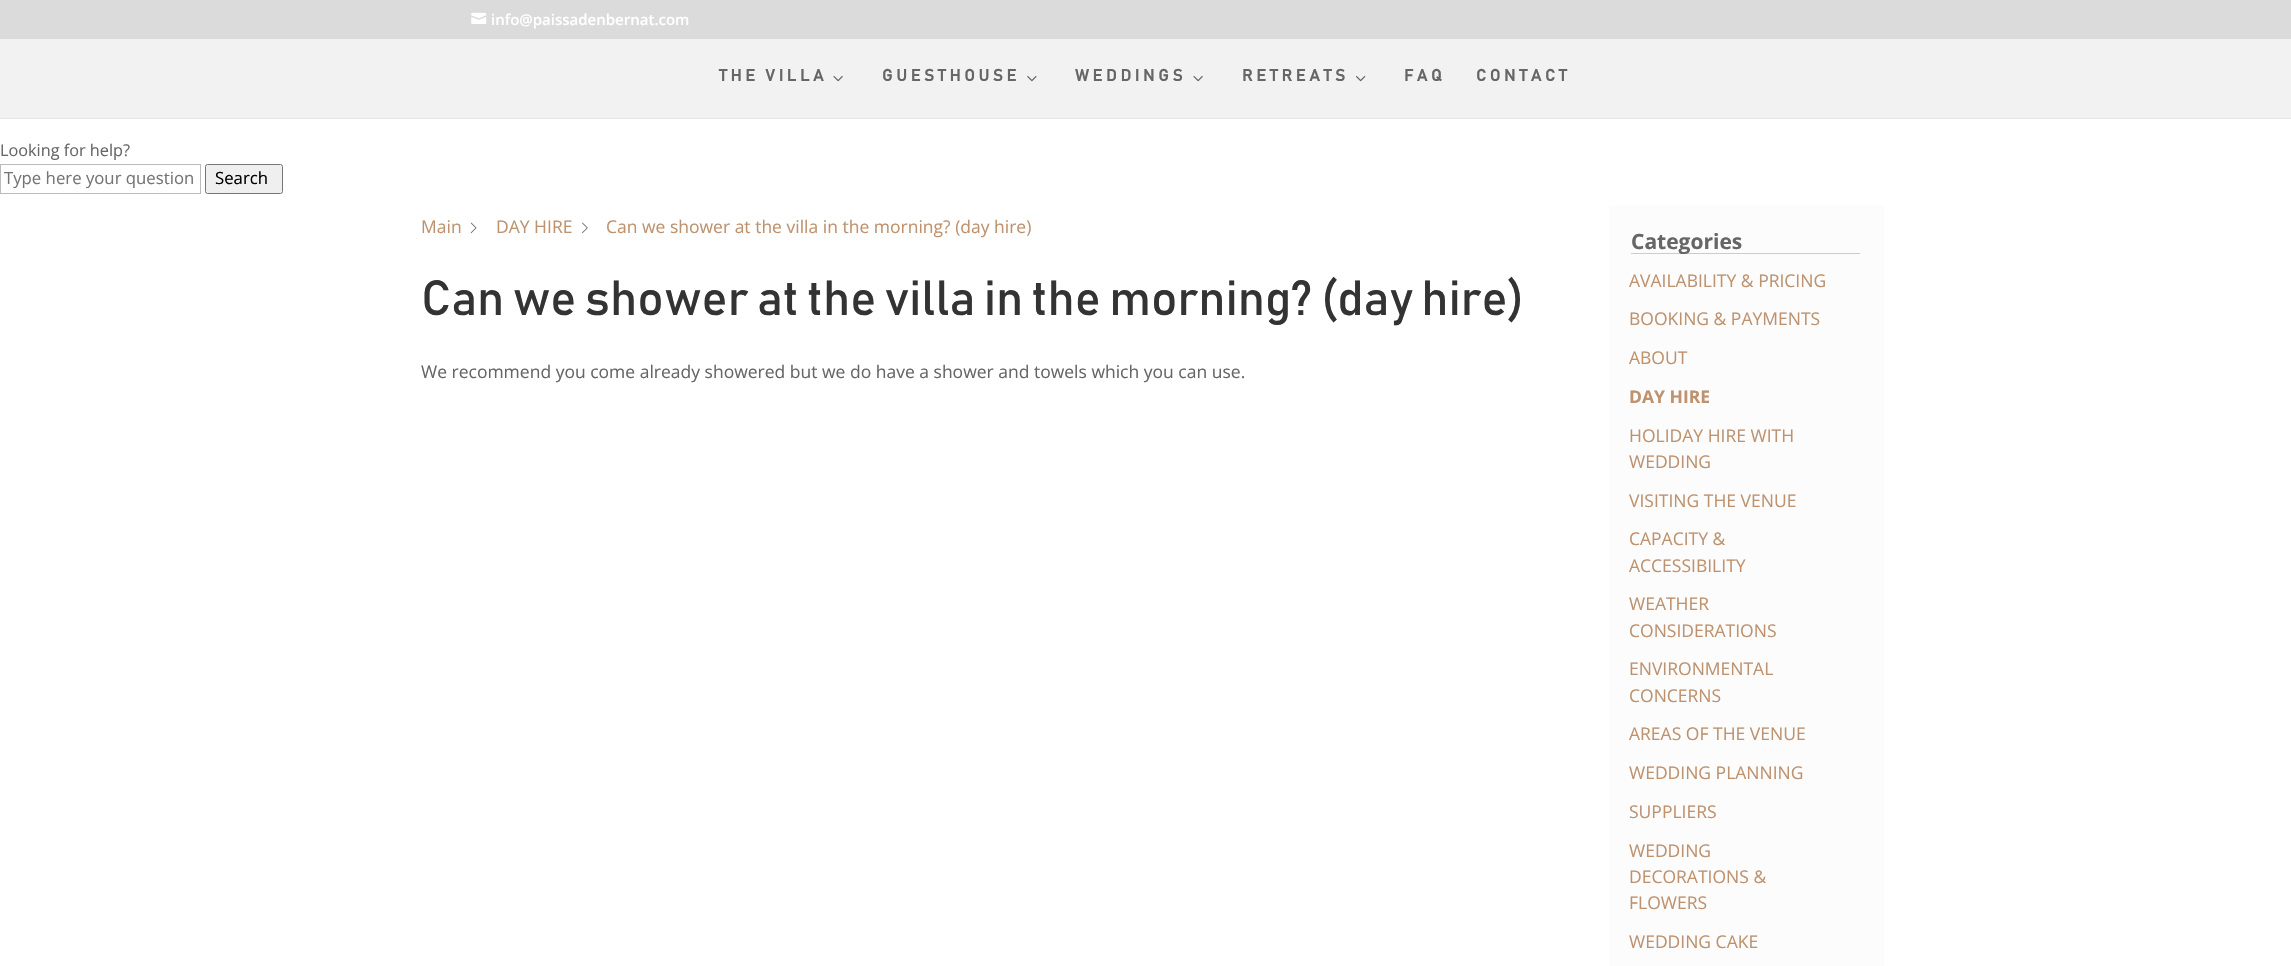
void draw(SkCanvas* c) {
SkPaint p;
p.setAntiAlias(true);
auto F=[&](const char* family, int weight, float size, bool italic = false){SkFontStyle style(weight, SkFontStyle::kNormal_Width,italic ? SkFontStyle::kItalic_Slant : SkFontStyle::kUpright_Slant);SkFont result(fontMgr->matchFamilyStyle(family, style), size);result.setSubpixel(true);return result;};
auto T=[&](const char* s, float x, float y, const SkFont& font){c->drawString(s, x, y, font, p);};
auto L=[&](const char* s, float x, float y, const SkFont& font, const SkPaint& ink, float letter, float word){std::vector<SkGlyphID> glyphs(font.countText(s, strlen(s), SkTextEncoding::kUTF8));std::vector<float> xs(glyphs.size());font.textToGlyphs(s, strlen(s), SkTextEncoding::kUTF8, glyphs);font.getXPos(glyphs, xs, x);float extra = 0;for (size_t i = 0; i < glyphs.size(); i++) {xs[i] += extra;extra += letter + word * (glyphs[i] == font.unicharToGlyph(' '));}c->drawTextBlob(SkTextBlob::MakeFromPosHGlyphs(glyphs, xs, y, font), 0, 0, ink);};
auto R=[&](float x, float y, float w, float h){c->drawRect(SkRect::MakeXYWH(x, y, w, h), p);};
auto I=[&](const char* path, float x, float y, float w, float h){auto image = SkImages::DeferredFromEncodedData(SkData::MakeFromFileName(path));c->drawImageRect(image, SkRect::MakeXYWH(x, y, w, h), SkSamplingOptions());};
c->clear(0xffffffff);
p.setColor(0xffdbdbdb);
R(0,0,2291,39);
I("1.png",471,12,16,12);
auto f1 = F("Open Sans",600,15);
p.setColor(0xffffffff);
T("info@paissadenbernat.com",491,25,f1);
p.setColor(0xffe6e6e6);
R(0,118,2291,1);
p.setColor(0xfff2f2f2);
R(0,39,2291,79);
auto f2 = F("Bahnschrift",700,16.25);
p.setColor(0xff666666);
L("THE VILLA",719,81,f2,p,3.75,0);
I("2.png",833,76,10,6);
L("GUESTHOUSE",882,81,f2,p,3.75,0);
I("3.png",1027,76,10,6);
L("WEDDINGS",1075,81,f2,p,3.75,0);
I("2.png",1193,76,10,6);
L("RETREATS",1242,81,f2,p,3.75,0);
I("4.png",1356,76,10,6);
L("FAQ",1404,81,f2,p,3.75,0);
L("CONTACT",1476,81,f2,p,3.75,0);
auto f3 = F("Open Sans",400,16.25);
T("Looking for help?",0,156,f3);
p.setStroke(true);
p.setStrokeWidth(1);
p.setColor(0xffbbbbbb);
c->drawRect(SkRect::MakeXYWH(.5,164.5,200,29),p);
auto f4 = F("Open Sans",400,16.75);
p.setStroke(false);
p.setColor(0xff757575);
T("Type here your question",4,184,f4);
p.setColor(0xffefefef);
c->drawRoundRect(SkRect::MakeXYWH(205.5,164.5,77,29),2,2,p);
p.setStroke(true);
p.setColor(0xff767676);
c->drawRoundRect(SkRect::MakeXYWH(205.5,164.5,77,29),2,2,p);
p.setStroke(false);
p.setColor(0xff000000);
T("Search",215,184,f4);
auto f5 = F("Open Sans",400,17.5);
p.setColor(0xffbe926e);
T("Main",421,233,f5);
I("5.png",470,222,7,12);
T("DAY HIRE",496,233,f5);
I("6.png",582,222,6,12);
T("Can we shower at the villa in the morning? (day hire)",606,233,f5);
auto f6 = F("Bahnschrift",400,48.75);
p.setColor(0xff333333);
T("Can we shower at the villa in the morning? (day hire)",421,315,f6);
p.setColor(0xff666666);
T("We recommend you come already showered but we do have a shower and towels which you can use.",421,378,f5);
p.setColor(0xfffcfcfc);
R(1609,206,275,760);
p.setColor(0xffcccccc);
R(1631,253,229,1);
auto f7 = F("Open Sans",700,21);
p.setColor(0xff666666);
T("Categories",1631,249,f7);
p.setColor(0xffbe926e);
T("AVAILABILITY & PRICING",1629,287,f5);
T("BOOKING & PAYMENTS",1629,325,f5);
T("ABOUT",1629,364,f5);
auto f8 = F("Open Sans",700,17.5);
T("DAY HIRE",1629,403,f8);
T("HOLIDAY HIRE WITH",1629,442,f5);
T("WEDDING",1629,468,f5);
T("VISITING THE VENUE",1629,507,f5);
T("CAPACITY &",1629,545,f5);
T("ACCESSIBILITY",1629,572,f5);
T("WEATHER",1629,610,f5);
T("CONSIDERATIONS",1629,637,f5);
T("ENVIRONMENTAL",1629,675,f5);
T("CONCERNS",1629,702,f5);
T("AREAS OF THE VENUE",1629,740,f5);
T("WEDDING PLANNING",1629,779,f5);
T("SUPPLIERS",1629,818,f5);
T("WEDDING",1629,857,f5);
T("DECORATIONS &",1629,883,f5);
T("FLOWERS",1629,909,f5);
T("WEDDING CAKE",1629,948,f5);
}
